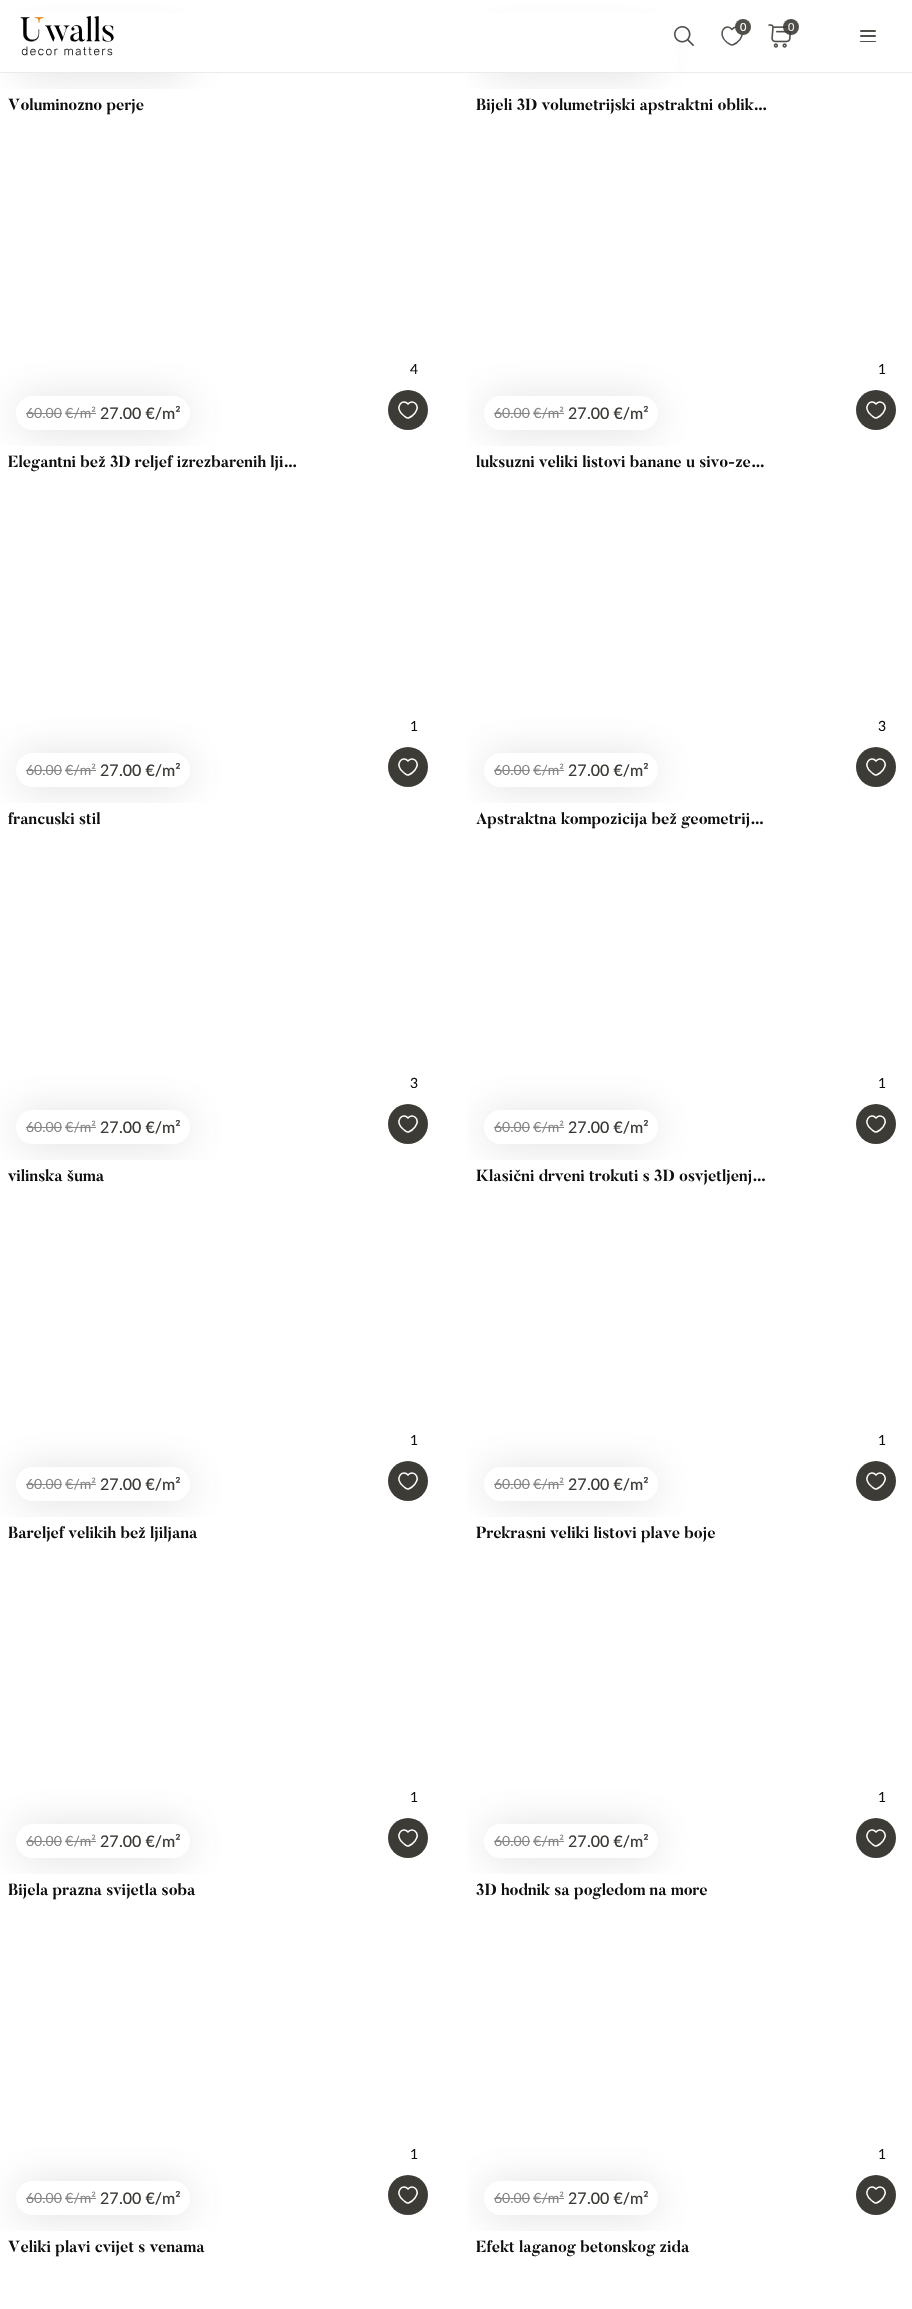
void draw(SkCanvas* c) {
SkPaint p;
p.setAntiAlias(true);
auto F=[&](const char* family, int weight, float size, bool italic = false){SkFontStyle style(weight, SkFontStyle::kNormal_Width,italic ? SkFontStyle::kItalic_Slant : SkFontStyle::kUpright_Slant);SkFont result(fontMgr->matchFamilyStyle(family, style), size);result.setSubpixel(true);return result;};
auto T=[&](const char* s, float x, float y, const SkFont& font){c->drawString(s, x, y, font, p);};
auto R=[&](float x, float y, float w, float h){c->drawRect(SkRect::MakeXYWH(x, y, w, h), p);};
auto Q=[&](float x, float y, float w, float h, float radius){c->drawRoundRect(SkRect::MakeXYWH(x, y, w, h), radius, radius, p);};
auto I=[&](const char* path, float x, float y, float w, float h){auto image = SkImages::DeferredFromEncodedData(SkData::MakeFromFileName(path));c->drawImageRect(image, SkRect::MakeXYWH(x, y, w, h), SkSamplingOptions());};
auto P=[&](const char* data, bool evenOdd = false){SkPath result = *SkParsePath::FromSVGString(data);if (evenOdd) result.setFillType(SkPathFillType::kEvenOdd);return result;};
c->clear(0xffffffff);
c->save();
c->clipRect(SkRect::MakeXYWH(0,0,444,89));
p.setColor(0x335e5e5e);
p.setMaskFilter(SkMaskFilter::MakeBlur(kNormal_SkBlurStyle, 20));
c->drawRoundRect(SkRect::MakeXYWH(16,41,174,34),17,17,p);
p.setMaskFilter(nullptr);
c->restore();
c->save();
c->clipRect(SkRect::MakeXYWH(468,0,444,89));
p.setMaskFilter(SkMaskFilter::MakeBlur(kNormal_SkBlurStyle, 20));
c->drawRoundRect(SkRect::MakeXYWH(484,41,174,34),17,17,p);
p.setMaskFilter(nullptr);
c->restore();
p.setColor(0xffffffff);
R(0,13,677,59);
p.setColor(0xffedebe8);
R(0,72,912,1);
I("1.png",20,16,94,40);
I("2.png",674,26,20,20);
p.setStroke(true);
p.setStrokeWidth(1.5);
p.setStrokeCap(SkPaint::kRound_Cap);
p.setStrokeJoin(SkPaint::kRound_Join);
p.setColor(0xff504f4a);
c->drawPath(P("M732.5 45c-1.5 .5-4-1.5-5.5-2.5c-11.5-9.5-.5-20.5 5-13c4.5-6.5 14.5 .5 8 10c-2 2.5-4.5 4.5-7.5 5.5z"),p);
p.setStroke(false);
c->drawCircle(743,27,8,p);
auto f1 = F("Lato",400,11);
p.setColor(0xffffffff);
T("0",740,31,f1);
I("3.png",768,24,24,24);
p.setColor(0xe63d3b36);
c->drawCircle(791,27,8,p);
p.setColor(0xffededed);
T("0",788,31,f1);
p.setColor(0xff504f4a);
Q(860,30,16,2,1);
Q(860,35,16,2,1);
Q(860,41,16,1,.5);
auto f2 = F("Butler",700,16);
p.setColor(0xff0f0f0f);
T("Voluminozno perje",8,110,f2);
T("Bijeli 3D volumetrijski apstraktni oblik…",476,110,f2);
auto f3 = F("Lato",400,14);
T("4",410,374,f3);
p.setColor(0xff3d3b36);
c->drawCircle(408,410,20,p);
p.setStroke(true);
p.setColor(0xffffffff);
c->drawPath(P("M408.5 418c-1.5 .5-3.5-1.5-5-2.5c-10.5-8-.5-18 4.5-11.5c4-5.5 13 .5 7 9c-1.5 2-4 4-6.5 5z"),p);
c->save();
c->clipRect(SkRect::MakeXYWH(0,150,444,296));
c->clipPath(P("M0 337h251v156h-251zm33 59h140c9.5 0 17 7.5 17 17c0 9.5-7.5 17-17 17h-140c-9.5 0-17-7.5-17-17c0-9.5 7.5-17 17-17z",true),true);
p.setStroke(false);
p.setColor(0x335e5e5e);
p.setMaskFilter(SkMaskFilter::MakeBlur(kNormal_SkBlurStyle, 20));
c->drawRoundRect(SkRect::MakeXYWH(16,398,174,34),17,17,p);
p.setMaskFilter(nullptr);
c->restore();
p.setColor(0xff878787);
T("60.00 €/m²",26,418,f3);
R(26,413,36,1);
R(65,413,31,1);
auto f4 = F("Lato",400,16);
p.setColor(0xff3d3b36);
T("27",100,419,f4);
auto f5 = F("Lato",500,16);
T(".00 €/m²",119,419,f5);
p.setColor(0xff0f0f0f);
T("Elegantni bež 3D reljef izrezbarenih lji…",8,467,f2);
T("1",878,374,f3);
p.setColor(0xff3d3b36);
c->drawCircle(876,410,20,p);
p.setStroke(true);
p.setColor(0xffffffff);
c->drawPath(P("M876.5 418c-1.5 .5-3.5-1.5-5-2.5c-10.5-8-.5-18 4.5-11.5c4-5.5 13 .5 7 9c-1.5 2-4 4-6.5 5z"),p);
c->save();
c->clipRect(SkRect::MakeXYWH(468,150,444,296));
c->clipPath(P("M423 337h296v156h-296zm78 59h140c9.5 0 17 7.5 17 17c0 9.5-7.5 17-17 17h-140c-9.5 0-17-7.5-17-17c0-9.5 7.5-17 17-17z",true),true);
p.setStroke(false);
p.setColor(0x335e5e5e);
p.setMaskFilter(SkMaskFilter::MakeBlur(kNormal_SkBlurStyle, 20));
c->drawRoundRect(SkRect::MakeXYWH(484,398,174,34),17,17,p);
p.setMaskFilter(nullptr);
c->restore();
p.setColor(0xff878787);
T("60.00 €/m²",494,418,f3);
R(494,413,36,1);
R(533,413,31,1);
p.setColor(0xff3d3b36);
T("27",568,419,f4);
T(".00 €/m²",587,419,f5);
p.setColor(0xff0f0f0f);
T("luksuzni veliki listovi banane u sivo-ze…",476,467,f2);
T("1",410,731,f3);
p.setColor(0xff3d3b36);
c->drawCircle(408,767,20,p);
p.setStroke(true);
p.setColor(0xffffffff);
c->drawPath(P("M408.5 775c-1.5 .5-3.5-1.5-5-2.5c-10.5-8-.5-18 4.5-11.5c4-5.5 13 .5 7 9c-1.5 2-4 4-6.5 5z"),p);
c->save();
c->clipRect(SkRect::MakeXYWH(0,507,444,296));
c->clipPath(P("M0 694h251v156h-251zm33 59h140c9.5 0 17 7.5 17 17c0 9.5-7.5 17-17 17h-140c-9.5 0-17-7.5-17-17c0-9.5 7.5-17 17-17z",true),true);
p.setStroke(false);
p.setColor(0x335e5e5e);
p.setMaskFilter(SkMaskFilter::MakeBlur(kNormal_SkBlurStyle, 20));
c->drawRoundRect(SkRect::MakeXYWH(16,755,174,34),17,17,p);
p.setMaskFilter(nullptr);
c->restore();
p.setColor(0xff878787);
T("60.00 €/m²",26,775,f3);
R(26,770,36,1);
R(65,770,31,1);
p.setColor(0xff3d3b36);
T("27",100,776,f4);
T(".00 €/m²",119,776,f5);
p.setColor(0xff0f0f0f);
T("francuski stil",8,824,f2);
T("3",878,731,f3);
p.setColor(0xff3d3b36);
c->drawCircle(876,767,20,p);
p.setStroke(true);
p.setColor(0xffffffff);
c->drawPath(P("M876.5 775c-1.5 .5-3.5-1.5-5-2.5c-10.5-8-.5-18 4.5-11.5c4-5.5 13 .5 7 9c-1.5 2-4 4-6.5 5z"),p);
c->save();
c->clipRect(SkRect::MakeXYWH(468,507,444,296));
c->clipPath(P("M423 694h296v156h-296zm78 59h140c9.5 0 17 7.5 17 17c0 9.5-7.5 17-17 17h-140c-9.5 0-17-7.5-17-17c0-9.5 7.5-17 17-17z",true),true);
p.setStroke(false);
p.setColor(0x335e5e5e);
p.setMaskFilter(SkMaskFilter::MakeBlur(kNormal_SkBlurStyle, 20));
c->drawRoundRect(SkRect::MakeXYWH(484,755,174,34),17,17,p);
p.setMaskFilter(nullptr);
c->restore();
p.setColor(0xff878787);
T("60.00 €/m²",494,775,f3);
R(494,770,36,1);
R(533,770,31,1);
p.setColor(0xff3d3b36);
T("27",568,776,f4);
T(".00 €/m²",587,776,f5);
p.setColor(0xff0f0f0f);
T("Apstraktna kompozicija bež geometrij…",476,824,f2);
T("3",410,1088,f3);
p.setColor(0xff3d3b36);
c->drawCircle(408,1124,20,p);
p.setStroke(true);
p.setColor(0xffffffff);
c->drawPath(P("M408.5 1132c-1.5 .5-3.5-1.5-5-2.5c-10.5-8-.5-18 4.5-11.5c4-5.5 13 .5 7 9c-1.5 2-4 4-6.5 5z"),p);
c->save();
c->clipRect(SkRect::MakeXYWH(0,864,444,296));
c->clipPath(P("M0 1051h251v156h-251zm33 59h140c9.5 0 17 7.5 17 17c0 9.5-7.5 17-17 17h-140c-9.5 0-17-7.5-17-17c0-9.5 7.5-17 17-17z",true),true);
p.setStroke(false);
p.setColor(0x335e5e5e);
p.setMaskFilter(SkMaskFilter::MakeBlur(kNormal_SkBlurStyle, 20));
c->drawRoundRect(SkRect::MakeXYWH(16,1112,174,34),17,17,p);
p.setMaskFilter(nullptr);
c->restore();
p.setColor(0xff878787);
T("60.00 €/m²",26,1132,f3);
R(26,1127,36,1);
R(65,1127,31,1);
p.setColor(0xff3d3b36);
T("27",100,1133,f4);
T(".00 €/m²",119,1133,f5);
p.setColor(0xff0f0f0f);
T("vilinska šuma",8,1181,f2);
T("1",878,1088,f3);
p.setColor(0xff3d3b36);
c->drawCircle(876,1124,20,p);
p.setStroke(true);
p.setColor(0xffffffff);
c->drawPath(P("M876.5 1132c-1.5 .5-3.5-1.5-5-2.5c-10.5-8-.5-18 4.5-11.5c4-5.5 13 .5 7 9c-1.5 2-4 4-6.5 5z"),p);
c->save();
c->clipRect(SkRect::MakeXYWH(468,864,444,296));
c->clipPath(P("M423 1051h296v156h-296zm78 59h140c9.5 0 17 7.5 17 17c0 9.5-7.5 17-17 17h-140c-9.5 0-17-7.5-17-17c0-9.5 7.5-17 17-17z",true),true);
p.setStroke(false);
p.setColor(0x335e5e5e);
p.setMaskFilter(SkMaskFilter::MakeBlur(kNormal_SkBlurStyle, 20));
c->drawRoundRect(SkRect::MakeXYWH(484,1112,174,34),17,17,p);
p.setMaskFilter(nullptr);
c->restore();
p.setColor(0xff878787);
T("60.00 €/m²",494,1132,f3);
R(494,1127,36,1);
R(533,1127,31,1);
p.setColor(0xff3d3b36);
T("27",568,1133,f4);
T(".00 €/m²",587,1133,f5);
p.setColor(0xff0f0f0f);
T("Klasični drveni trokuti s 3D osvjetljenj…",476,1181,f2);
T("1",410,1445,f3);
p.setColor(0xff3d3b36);
c->drawCircle(408,1481,20,p);
p.setStroke(true);
p.setColor(0xffffffff);
c->drawPath(P("M408.5 1489c-1.5 .5-3.5-1.5-5-2.5c-10.5-8-.5-18 4.5-11.5c4-5.5 13 .5 7 9c-1.5 2-4 4-6.5 5z"),p);
c->save();
c->clipRect(SkRect::MakeXYWH(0,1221,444,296));
c->clipPath(P("M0 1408h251v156h-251zm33 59h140c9.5 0 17 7.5 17 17c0 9.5-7.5 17-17 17h-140c-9.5 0-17-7.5-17-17c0-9.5 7.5-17 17-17z",true),true);
p.setStroke(false);
p.setColor(0x335e5e5e);
p.setMaskFilter(SkMaskFilter::MakeBlur(kNormal_SkBlurStyle, 20));
c->drawRoundRect(SkRect::MakeXYWH(16,1469,174,34),17,17,p);
p.setMaskFilter(nullptr);
c->restore();
p.setColor(0xff878787);
T("60.00 €/m²",26,1489,f3);
R(26,1484,36,1);
R(65,1484,31,1);
p.setColor(0xff3d3b36);
T("27",100,1490,f4);
T(".00 €/m²",119,1490,f5);
p.setColor(0xff0f0f0f);
T("Bareljef velikih bež ljiljana",8,1538,f2);
T("1",878,1445,f3);
p.setColor(0xff3d3b36);
c->drawCircle(876,1481,20,p);
p.setStroke(true);
p.setColor(0xffffffff);
c->drawPath(P("M876.5 1489c-1.5 .5-3.5-1.5-5-2.5c-10.5-8-.5-18 4.5-11.5c4-5.5 13 .5 7 9c-1.5 2-4 4-6.5 5z"),p);
c->save();
c->clipRect(SkRect::MakeXYWH(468,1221,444,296));
c->clipPath(P("M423 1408h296v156h-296zm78 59h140c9.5 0 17 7.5 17 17c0 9.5-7.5 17-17 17h-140c-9.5 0-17-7.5-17-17c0-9.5 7.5-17 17-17z",true),true);
p.setStroke(false);
p.setColor(0x335e5e5e);
p.setMaskFilter(SkMaskFilter::MakeBlur(kNormal_SkBlurStyle, 20));
c->drawRoundRect(SkRect::MakeXYWH(484,1469,174,34),17,17,p);
p.setMaskFilter(nullptr);
c->restore();
p.setColor(0xff878787);
T("60.00 €/m²",494,1489,f3);
R(494,1484,36,1);
R(533,1484,31,1);
p.setColor(0xff3d3b36);
T("27",568,1490,f4);
T(".00 €/m²",587,1490,f5);
p.setColor(0xff0f0f0f);
T("Prekrasni veliki listovi plave boje",476,1538,f2);
T("1",410,1802,f3);
p.setColor(0xff3d3b36);
c->drawCircle(408,1838,20,p);
p.setStroke(true);
p.setColor(0xffffffff);
c->drawPath(P("M408.5 1846c-1.5 .5-3.5-1.5-5-2.5c-10.5-8-.5-18 4.5-11.5c4-5.5 13 .5 7 9c-1.5 2-4 4-6.5 5z"),p);
c->save();
c->clipRect(SkRect::MakeXYWH(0,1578,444,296));
c->clipPath(P("M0 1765h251v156h-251zm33 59h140c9.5 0 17 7.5 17 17c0 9.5-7.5 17-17 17h-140c-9.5 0-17-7.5-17-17c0-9.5 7.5-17 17-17z",true),true);
p.setStroke(false);
p.setColor(0x335e5e5e);
p.setMaskFilter(SkMaskFilter::MakeBlur(kNormal_SkBlurStyle, 20));
c->drawRoundRect(SkRect::MakeXYWH(16,1826,174,34),17,17,p);
p.setMaskFilter(nullptr);
c->restore();
p.setColor(0xff878787);
T("60.00 €/m²",26,1846,f3);
R(26,1841,36,1);
R(65,1841,31,1);
p.setColor(0xff3d3b36);
T("27",100,1847,f4);
T(".00 €/m²",119,1847,f5);
p.setColor(0xff0f0f0f);
T("Bijela prazna svijetla soba",8,1895,f2);
T("1",878,1802,f3);
p.setColor(0xff3d3b36);
c->drawCircle(876,1838,20,p);
p.setStroke(true);
p.setColor(0xffffffff);
c->drawPath(P("M876.5 1846c-1.5 .5-3.5-1.5-5-2.5c-10.5-8-.5-18 4.5-11.5c4-5.5 13 .5 7 9c-1.5 2-4 4-6.5 5z"),p);
c->save();
c->clipRect(SkRect::MakeXYWH(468,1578,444,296));
c->clipPath(P("M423 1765h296v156h-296zm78 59h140c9.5 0 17 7.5 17 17c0 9.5-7.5 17-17 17h-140c-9.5 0-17-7.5-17-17c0-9.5 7.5-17 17-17z",true),true);
p.setStroke(false);
p.setColor(0x335e5e5e);
p.setMaskFilter(SkMaskFilter::MakeBlur(kNormal_SkBlurStyle, 20));
c->drawRoundRect(SkRect::MakeXYWH(484,1826,174,34),17,17,p);
p.setMaskFilter(nullptr);
c->restore();
p.setColor(0xff878787);
T("60.00 €/m²",494,1846,f3);
R(494,1841,36,1);
R(533,1841,31,1);
p.setColor(0xff3d3b36);
T("27",568,1847,f4);
T(".00 €/m²",587,1847,f5);
p.setColor(0xff0f0f0f);
T("3D hodnik sa pogledom na more",476,1895,f2);
T("1",410,2159,f3);
p.setColor(0xff3d3b36);
c->drawCircle(408,2195,20,p);
p.setStroke(true);
p.setColor(0xffffffff);
c->drawPath(P("M408.5 2203c-1.5 .5-3.5-1.5-5-2.5c-10.5-8-.5-18 4.5-11.5c4-5.5 13 .5 7 9c-1.5 2-4 4-6.5 5z"),p);
c->save();
c->clipRect(SkRect::MakeXYWH(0,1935,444,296));
c->clipPath(P("M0 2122h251v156h-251zm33 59h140c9.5 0 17 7.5 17 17c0 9.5-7.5 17-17 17h-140c-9.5 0-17-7.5-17-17c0-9.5 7.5-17 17-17z",true),true);
p.setStroke(false);
p.setColor(0x335e5e5e);
p.setMaskFilter(SkMaskFilter::MakeBlur(kNormal_SkBlurStyle, 20));
c->drawRoundRect(SkRect::MakeXYWH(16,2183,174,34),17,17,p);
p.setMaskFilter(nullptr);
c->restore();
p.setColor(0xff878787);
T("60.00 €/m²",26,2203,f3);
R(26,2198,36,1);
R(65,2198,31,1);
p.setColor(0xff3d3b36);
T("27",100,2204,f4);
T(".00 €/m²",119,2204,f5);
p.setColor(0xff0f0f0f);
T("Veliki plavi cvijet s venama",8,2252,f2);
T("1",878,2159,f3);
p.setColor(0xff3d3b36);
c->drawCircle(876,2195,20,p);
p.setStroke(true);
p.setColor(0xffffffff);
c->drawPath(P("M876.5 2203c-1.5 .5-3.5-1.5-5-2.5c-10.5-8-.5-18 4.5-11.5c4-5.5 13 .5 7 9c-1.5 2-4 4-6.5 5z"),p);
c->save();
c->clipRect(SkRect::MakeXYWH(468,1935,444,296));
c->clipPath(P("M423 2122h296v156h-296zm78 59h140c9.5 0 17 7.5 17 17c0 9.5-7.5 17-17 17h-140c-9.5 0-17-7.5-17-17c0-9.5 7.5-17 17-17z",true),true);
p.setStroke(false);
p.setColor(0x335e5e5e);
p.setMaskFilter(SkMaskFilter::MakeBlur(kNormal_SkBlurStyle, 20));
c->drawRoundRect(SkRect::MakeXYWH(484,2183,174,34),17,17,p);
p.setMaskFilter(nullptr);
c->restore();
p.setColor(0xff878787);
T("60.00 €/m²",494,2203,f3);
R(494,2198,36,1);
R(533,2198,31,1);
p.setColor(0xff3d3b36);
T("27",568,2204,f4);
T(".00 €/m²",587,2204,f5);
p.setColor(0xff0f0f0f);
T("Efekt laganog betonskog zida",476,2252,f2);
}
